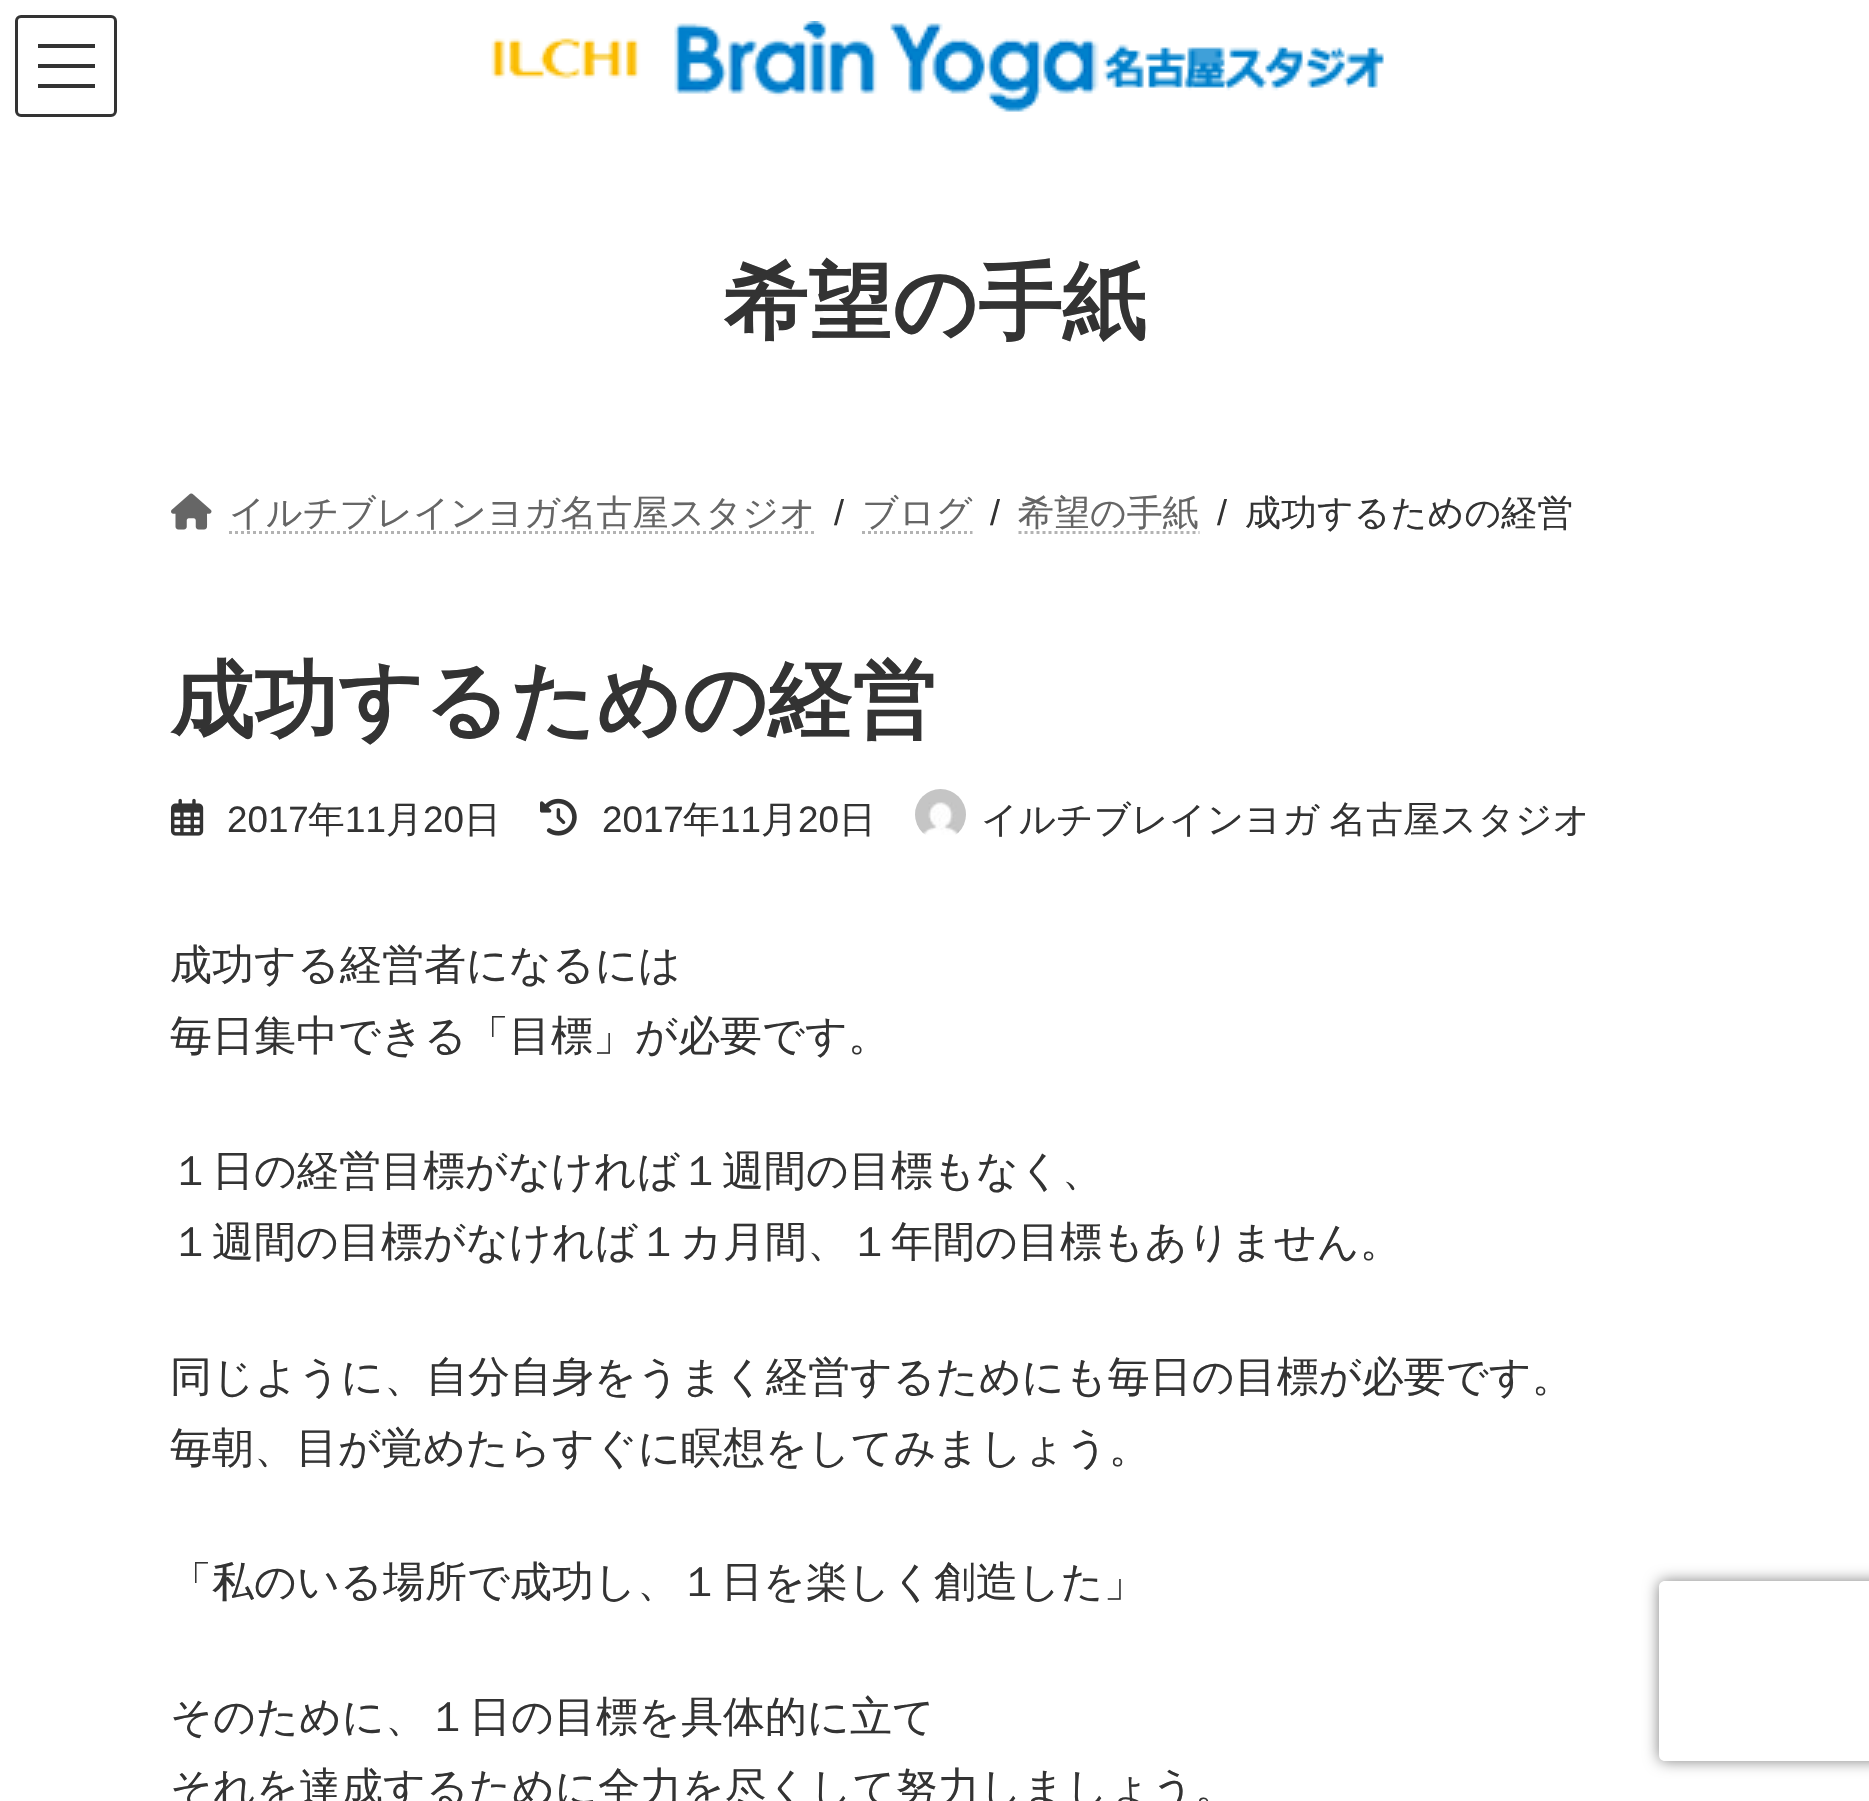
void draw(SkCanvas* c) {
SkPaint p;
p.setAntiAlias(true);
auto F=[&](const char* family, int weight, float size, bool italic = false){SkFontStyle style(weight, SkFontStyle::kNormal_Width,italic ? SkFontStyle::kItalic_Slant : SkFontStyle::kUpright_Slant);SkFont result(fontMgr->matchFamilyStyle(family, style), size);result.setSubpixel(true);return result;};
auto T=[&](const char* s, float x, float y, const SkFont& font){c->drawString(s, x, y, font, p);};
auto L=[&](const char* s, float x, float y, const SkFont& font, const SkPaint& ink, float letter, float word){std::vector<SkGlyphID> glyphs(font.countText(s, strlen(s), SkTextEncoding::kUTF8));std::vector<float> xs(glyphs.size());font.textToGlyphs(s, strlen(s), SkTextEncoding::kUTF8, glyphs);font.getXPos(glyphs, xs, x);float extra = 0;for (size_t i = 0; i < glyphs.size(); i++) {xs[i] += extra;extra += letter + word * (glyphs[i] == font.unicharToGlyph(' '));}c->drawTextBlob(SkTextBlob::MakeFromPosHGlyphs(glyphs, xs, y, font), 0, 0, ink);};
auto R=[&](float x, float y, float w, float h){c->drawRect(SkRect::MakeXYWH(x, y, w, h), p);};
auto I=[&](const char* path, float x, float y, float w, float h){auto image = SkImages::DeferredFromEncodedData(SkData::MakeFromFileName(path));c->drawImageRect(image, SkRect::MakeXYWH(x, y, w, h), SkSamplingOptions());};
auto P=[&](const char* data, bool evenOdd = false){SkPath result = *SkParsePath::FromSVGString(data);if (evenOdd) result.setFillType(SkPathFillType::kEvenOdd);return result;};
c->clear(0xffffffff);
p.setColor(0xff333333);
R(38,44,57,4);
R(38,64,57,4);
R(38,84,57,4);
p.setStroke(true);
p.setStrokeWidth(3);
c->drawRoundRect(SkRect::MakeXYWH(16.5,16.5,99,99),4.5,4.5,p);
I("1.png",491,21,893,91);
auto f1 = F("WenQuanYi Zen Hei",700,84);
p.setStroke(false);
T("希望の手紙",724,331,f1);
I("2.png",171,493,41,37);
auto f2 = F("WenQuanYi Zen Hei",500,36);
p.setColor(0xff666666);
T("イルチブレインヨガ名古屋スタジオ",229,525,f2);
p.setStroke(true);
p.setColor(0xffb3b3b3);
p.setPathEffect(SkDashPathEffect::Make({{3,3}}, 0));
c->drawPath(P("M229 532.5h587"),p);
p.setPathEffect(nullptr);
auto f3 = F("Liberation Sans",400,36);
p.setStroke(false);
p.setColor(0xff333333);
T("/",834,525,f3);
p.setColor(0xff666666);
T("ブログ",862,525,f2);
p.setStroke(true);
p.setColor(0xffb3b3b3);
p.setPathEffect(SkDashPathEffect::Make({{3,3}}, 0));
c->drawPath(P("M862 532.5h110.5"),p);
p.setPathEffect(nullptr);
p.setStroke(false);
p.setColor(0xff333333);
T("/",990,525,f3);
p.setColor(0xff666666);
T("希望の手紙",1018,525,f2);
p.setStroke(true);
p.setColor(0xffb3b3b3);
p.setPathEffect(SkDashPathEffect::Make({{3,3}}, 0));
c->drawPath(P("M1018.5 532.5h181"),p);
p.setPathEffect(nullptr);
p.setStroke(false);
p.setColor(0xff333333);
T("/",1217,525,f3);
T("成功するための経営",1245,525,f2);
T("成功するための経営",170,729,f1);
I("3.png",171,798,33,38);
auto f4 = F("Liberation Sans",400,36.75);
T("2017",227,832,f4);
auto f5 = F("WenQuanYi Zen Hei",500,36.75);
T("年",308,832,f5);
T("11",345,832,f4);
T("月",386,832,f5);
T("20",423,832,f4);
T("日",464,832,f5);
I("4.png",540,798,37,38);
T("2017",602,832,f4);
T("年",683,832,f5);
T("11",720,832,f4);
T("月",761,832,f5);
T("20",798,832,f4);
T("日",839,832,f5);
I("5.png",915,789,51,46);
L("イルチブレインヨガ 名古屋スタジオ",981,832,f5,p,0,-1);
auto f6 = F("WenQuanYi Zen Hei",500,42);
T("成功する経営者になるには",170,979,f6);
T("毎日集中できる「目標」が必要です。",170,1050,f6);
T("１日の経営目標がなければ１週間の目標もなく、",170,1185,f6);
T("１週間の目標がなければ１カ月間、１年間の目標もありません。",170,1256,f6);
T("同じように、自分自身をうまく経営するためにも毎日の目標が必要です。",170,1391,f6);
T("毎朝、目が覚めたらすぐに瞑想をしてみましょう。",170,1462,f6);
T("「私のいる場所で成功し、１日を楽しく創造した」",170,1596,f6);
T("そのために、１日の目標を具体的に立て",170,1731,f6);
T("それを達成するために全力を尽くして努力しましょう。",170,1802,f6);
c->save();
c->clipPath(P("M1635 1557h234v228h-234zm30 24h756c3.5 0 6 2.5 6 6v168c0 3.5-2.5 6-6 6h-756c-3.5 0-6-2.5-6-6v-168c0-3.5 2.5-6 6-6z",true),true);
p.setColor(0xff808080);
p.setMaskFilter(SkMaskFilter::MakeBlur(kNormal_SkBlurStyle, 7.5));
c->drawRoundRect(SkRect::MakeXYWH(1659,1581,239,180),6,6,p);
p.setMaskFilter(nullptr);
c->restore();
}
